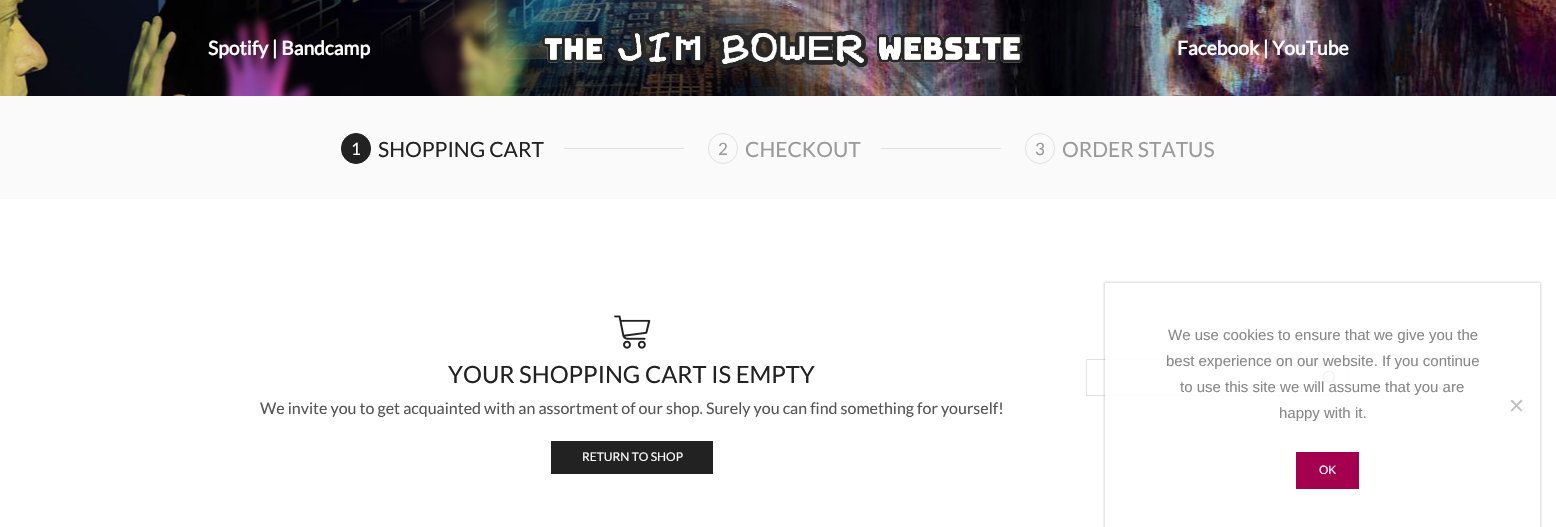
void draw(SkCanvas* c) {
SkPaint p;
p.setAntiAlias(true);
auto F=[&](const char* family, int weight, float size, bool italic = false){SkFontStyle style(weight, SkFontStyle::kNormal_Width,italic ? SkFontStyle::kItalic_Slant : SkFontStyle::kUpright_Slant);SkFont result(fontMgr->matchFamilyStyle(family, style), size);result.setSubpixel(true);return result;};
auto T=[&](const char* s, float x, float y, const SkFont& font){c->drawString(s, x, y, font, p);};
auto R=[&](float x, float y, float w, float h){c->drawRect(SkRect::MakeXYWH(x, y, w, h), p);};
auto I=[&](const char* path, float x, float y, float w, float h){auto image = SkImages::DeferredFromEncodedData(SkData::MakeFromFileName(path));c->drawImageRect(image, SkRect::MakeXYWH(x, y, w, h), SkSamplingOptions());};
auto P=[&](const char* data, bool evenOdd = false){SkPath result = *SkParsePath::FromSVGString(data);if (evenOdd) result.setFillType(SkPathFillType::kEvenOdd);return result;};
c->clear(0xffffffff);
I("1.png",0,0,1556,96);
auto f1 = F("Lato",700,19.25);
p.setColor(0xffffffff);
T("Spotify | Bandcamp",208,55,f1);
I("2.png",542,28,481,41);
T("Facebook | YouTube",1177,55,f1);
p.setColor(0xfffafafa);
R(0,96,1556,103);
p.setColor(0xff222222);
c->drawRoundRect(SkRect::MakeXYWH(341.5,133.5,29,30),14.5,14.5,p);
p.setStroke(true);
p.setStrokeWidth(1);
c->drawRoundRect(SkRect::MakeXYWH(341.5,133.5,29,30),14.5,14.5,p);
auto f2 = F("Lato",400,17);
p.setStroke(false);
p.setColor(0xffffffff);
T("1",351,155,f2);
auto f3 = F("Lato",400,21);
p.setColor(0xff222222);
T("SHOPPING CART",378,157,f3);
p.setColor(0xffe1e1e1);
R(564,148,120,1);
p.setStroke(true);
c->drawRoundRect(SkRect::MakeXYWH(708.5,133.5,29,30),14.5,14.5,p);
p.setStroke(false);
p.setColor(0xff9a9a9a);
T("2",718,155,f2);
T("CHECKOUT",745,157,f3);
p.setColor(0xffe1e1e1);
R(881,148,120,1);
p.setStroke(true);
c->drawRoundRect(SkRect::MakeXYWH(1025.5,133.5,29,30),14.5,14.5,p);
p.setStroke(false);
p.setColor(0xff9a9a9a);
T("3",1035,155,f2);
T("ORDER STATUS",1062,157,f3);
I("3.png",614,315,37,34);
auto f4 = F("Lato",400,23.75);
p.setColor(0xff222222);
T("YOUR SHOPPING CART IS EMPTY",448,383,f4);
auto f5 = F("Lato",400,16);
p.setColor(0xff555555);
T("We invite you to get acquainted with an assortment of our shop. Surely you can find something for yourself!",260,414,f5);
p.setColor(0xff222222);
R(551,441,162,33);
auto f6 = F("Lato",400,12);
p.setColor(0xffffffff);
T("RETURN TO SHOP",582,461,f6);
p.setStroke(true);
p.setColor(0xffe1e1e1);
c->drawRect(SkRect::MakeXYWH(1086.5,359.5,261,36),p);
I("4.png",1323,370,14,15);
c->save();
c->clipPath(P("M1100 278h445v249h-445zm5 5h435v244h-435z",true),true);
p.setStroke(false);
p.setColor(0x26000000);
p.setMaskFilter(SkMaskFilter::MakeBlur(kNormal_SkBlurStyle, 1));
c->drawRect(SkRect::MakeXYWH(1104,282,437,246),p);
p.setMaskFilter(nullptr);
c->restore();
p.setColor(0xe6ffffff);
R(1105,359,243,37);
auto f7 = F("Liberation Sans",400,15);
p.setColor(0xff888888);
T("We use cookies to ensure that we give you the",1168,340,f7);
T("best experience on our website. If you continue",1166,366,f7);
T("to use this site we will assume that you are",1180,392,f7);
T("happy with it.",1279,418,f7);
p.setColor(0xffc0c0c0);
c->drawPath(P("M1521 399.5l1.5 1.5l-10.5 10.5l-1.5-1z"),p);
c->drawPath(P("M1510.5 401l1.5-1.5l10.5 11l-1.5 1z"),p);
p.setColor(0xffa4004f);
R(1296,452,63,37);
auto f8 = F("Liberation Sans",400,12);
p.setColor(0xffffffff);
T("OK",1319,474,f8);
}
